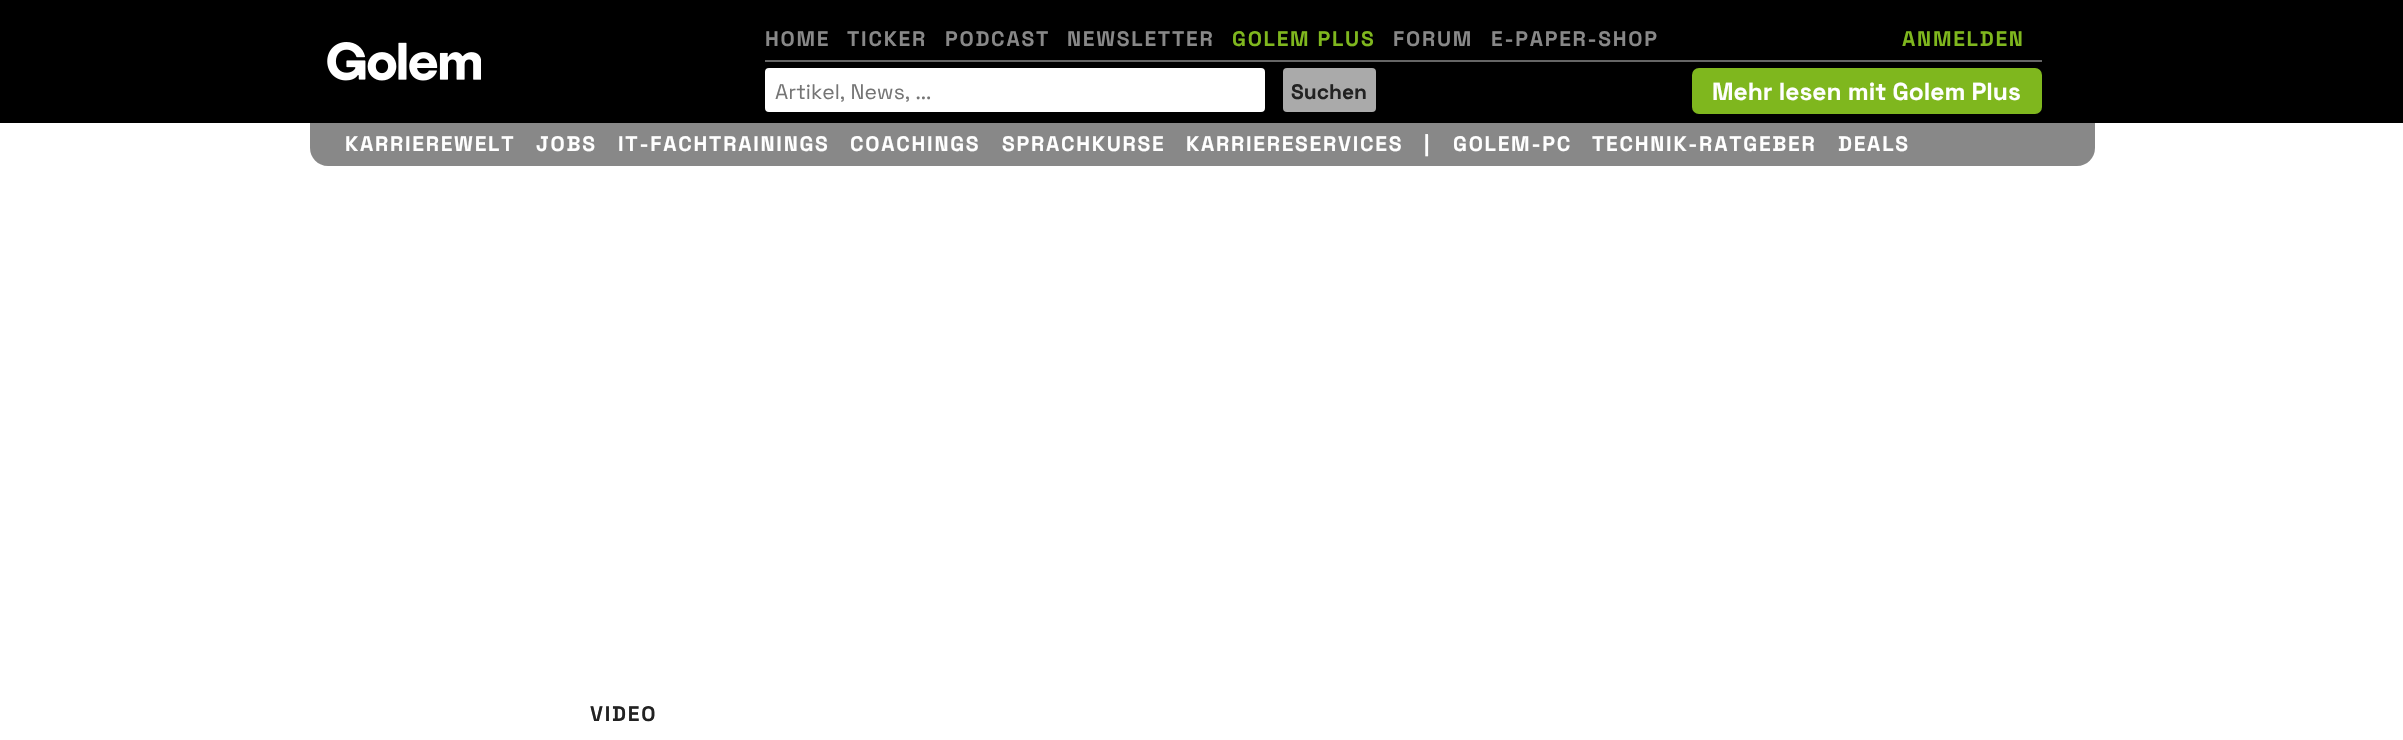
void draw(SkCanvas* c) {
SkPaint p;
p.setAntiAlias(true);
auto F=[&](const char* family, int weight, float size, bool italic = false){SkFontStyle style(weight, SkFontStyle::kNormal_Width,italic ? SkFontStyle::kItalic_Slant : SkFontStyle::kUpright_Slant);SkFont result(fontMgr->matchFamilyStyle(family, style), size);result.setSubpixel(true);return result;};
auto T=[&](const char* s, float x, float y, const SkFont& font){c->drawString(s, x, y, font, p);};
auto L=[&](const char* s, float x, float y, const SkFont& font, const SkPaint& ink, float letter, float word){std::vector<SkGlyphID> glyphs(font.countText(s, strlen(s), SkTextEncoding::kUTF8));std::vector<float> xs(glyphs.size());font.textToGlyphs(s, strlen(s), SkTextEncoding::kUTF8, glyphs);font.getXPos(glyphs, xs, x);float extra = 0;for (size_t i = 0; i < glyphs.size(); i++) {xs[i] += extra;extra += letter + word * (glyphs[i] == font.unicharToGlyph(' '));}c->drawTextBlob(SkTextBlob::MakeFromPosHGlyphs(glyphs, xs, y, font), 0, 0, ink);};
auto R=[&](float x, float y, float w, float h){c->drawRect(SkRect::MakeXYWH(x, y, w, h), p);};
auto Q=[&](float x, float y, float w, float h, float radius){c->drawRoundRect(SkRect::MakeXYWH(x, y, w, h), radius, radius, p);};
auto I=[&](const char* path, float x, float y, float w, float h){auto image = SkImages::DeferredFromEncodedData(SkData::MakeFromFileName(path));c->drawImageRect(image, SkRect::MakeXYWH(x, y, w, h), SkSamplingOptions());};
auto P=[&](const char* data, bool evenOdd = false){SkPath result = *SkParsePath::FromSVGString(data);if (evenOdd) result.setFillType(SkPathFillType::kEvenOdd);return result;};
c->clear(0xffffffff);
p.setColor(0xff000000);
R(0,0,2403,123);
auto f1 = F("Space Grotesk",700,21);
p.setColor(0xff888888);
L("HOME",765,46,f1,p,1.75,0);
L("TICKER",847,46,f1,p,1.75,0);
L("PODCAST",945,46,f1,p,1.75,0);
L("NEWSLETTER",1067,46,f1,p,1.75,0);
p.setColor(0xff7fb71e);
L("GOLEM PLUS",1232,46,f1,p,1.75,0);
p.setColor(0xff888888);
L("FORUM",1393,46,f1,p,1.75,0);
L("E-PAPER-SHOP",1491,46,f1,p,1.75,0);
p.setColor(0xff7fb71e);
L("ANMELDEN",1902,46,f1,p,1.75,0);
I("1.png",327,42,154,39);
p.setColor(0xff666666);
R(765,60,1277,2);
p.setColor(0xffffffff);
c->drawRoundRect(SkRect::MakeXYWH(766,69,498,42),3,3,p);
p.setStroke(true);
p.setStrokeWidth(2);
c->drawRoundRect(SkRect::MakeXYWH(766,69,498,42),3,3,p);
auto f2 = F("Space Grotesk",400,21);
p.setStroke(false);
p.setColor(0xff757575);
T("Artikel, News, ...",775,99,f2);
p.setColor(0xffaaaaaa);
Q(1283,68,93,44,4);
p.setColor(0xff222222);
T("Suchen",1291,99,f1);
p.setColor(0xff7fb71e);
Q(1692,68,350,46,7);
auto f3 = F("Space Grotesk",700,24.5);
p.setColor(0xffffffff);
T("Mehr lesen mit Golem Plus",1712,100,f3);
p.setColor(0xff888888);
c->drawPath(P("M310 123h1785v25c0 10-8 18-18 18h-1749c-10 0-18-8-18-18z"),p);
p.setColor(0xffffffff);
L("KARRIEREWELT",345,151,f1,p,1.75,0);
L("JOBS",536,151,f1,p,1.75,0);
L("IT-FACHTRAININGS",618,151,f1,p,1.75,0);
L("COACHINGS",850,151,f1,p,1.75,0);
L("SPRACHKURSE",1002,151,f1,p,1.75,0);
L("KARRIERESERVICES",1186,151,f1,p,1.75,0);
L("|",1424,151,f1,p,1.75,0);
L("GOLEM-PC",1453,151,f1,p,1.75,0);
L("TECHNIK-RATGEBER",1592,151,f1,p,1.75,0);
L("DEALS",1838,151,f1,p,1.75,0);
p.setColor(0xff222222);
L("VIDEO",590,721,f1,p,1.75,0);
}
